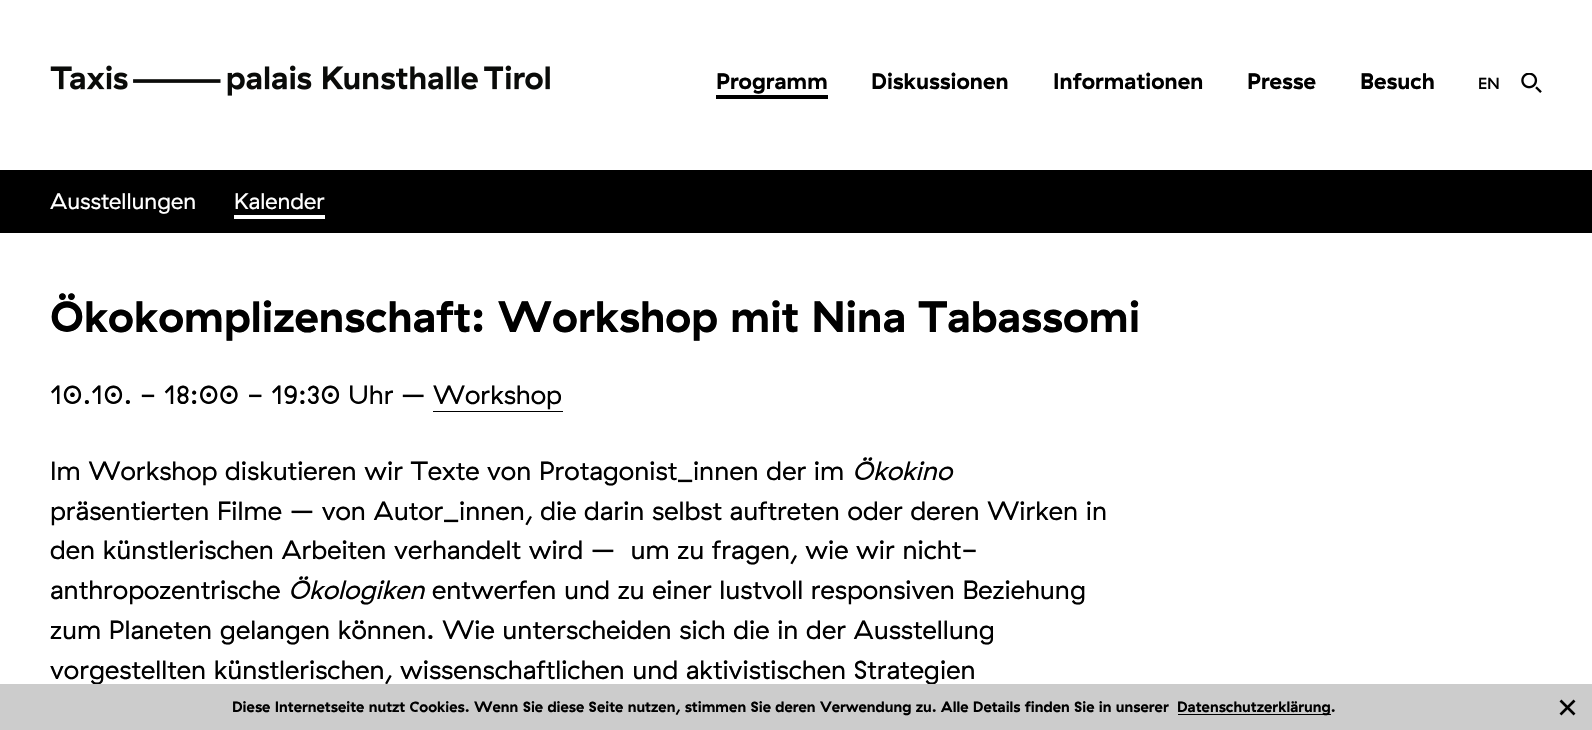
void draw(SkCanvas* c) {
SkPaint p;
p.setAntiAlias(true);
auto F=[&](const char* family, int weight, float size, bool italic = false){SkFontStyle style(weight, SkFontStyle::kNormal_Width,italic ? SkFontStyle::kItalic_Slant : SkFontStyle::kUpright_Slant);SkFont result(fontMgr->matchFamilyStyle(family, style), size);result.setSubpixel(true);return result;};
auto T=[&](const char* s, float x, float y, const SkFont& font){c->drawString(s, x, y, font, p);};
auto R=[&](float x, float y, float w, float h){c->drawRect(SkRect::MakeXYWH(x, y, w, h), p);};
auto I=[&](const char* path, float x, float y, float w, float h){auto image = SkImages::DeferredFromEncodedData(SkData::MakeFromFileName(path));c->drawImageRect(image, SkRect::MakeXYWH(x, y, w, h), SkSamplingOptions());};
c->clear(0xffffffff);
I("1.png",50,65,500,31);
auto f1 = F("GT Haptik",700,22.5);
p.setColor(0xff000000);
T("Programm",716,89,f1);
R(716,95,112,4);
T("Diskussionen",871,89,f1);
T("Informationen",1053,89,f1);
T("Presse",1247,89,f1);
T("Besuch",1360,89,f1);
auto f2 = F("GT Haptik",500,16);
T("EN",1478,89,f2);
I("2.png",1521,73,21,20);
auto f3 = F("GT Haptik",400,26.25);
T("vorgestellten künstlerischen, wissenschaftlichen und aktivistischen Strategien",50,679,f3);
p.setColor(0xffcccccc);
R(0,684,1592,46);
auto f4 = F("GT Haptik",700,15);
p.setColor(0xff000000);
T("Diese Internetseite nutzt Cookies. Wenn Sie diese Seite nutzen, stimmen Sie deren Verwendung zu. Alle Details finden Sie in unserer",232,712,f4);
R(1178,714,153,1);
T("Datenschutzerklärung.",1177,712,f4);
I("3.png",1559,699,17,17);
R(0,170,1592,63);
auto f5 = F("GT Haptik",400,22.5);
p.setColor(0xffffffff);
T("Ausstellungen",50,209,f5);
T("Kalender",234,209,f5);
R(234,215,91,4);
auto f6 = F("GT Haptik",700,43.75);
p.setColor(0xff000000);
T("Ökokomplizenschaft: Workshop mit Nina Tabassomi",50,332,f6);
T("10.10. - 18:00 - 19:30 Uhr – Workshop",50,404,f3);
R(433,411,130,1);
T("Im Workshop diskutieren wir Texte von Protagonist_innen der im",50,480,f3);
auto f7 = F("GT Haptik",400,26.25,true);
T("Ökokino",852,480,f7);
T("präsentierten Filme – von Autor_innen, die darin selbst auftreten oder deren Wirken in",50,520,f3);
T("den künstlerischen Arbeiten verhandelt wird –  um zu fragen, wie wir nicht-",50,559,f3);
T("anthropozentrische",50,599,f3);
T("Ökologiken",288,599,f7);
T("entwerfen und zu einer lustvoll responsiven Beziehung",432,599,f3);
T("zum Planeten gelangen können. Wie unterscheiden sich die in der Ausstellung",50,639,f3);
}
